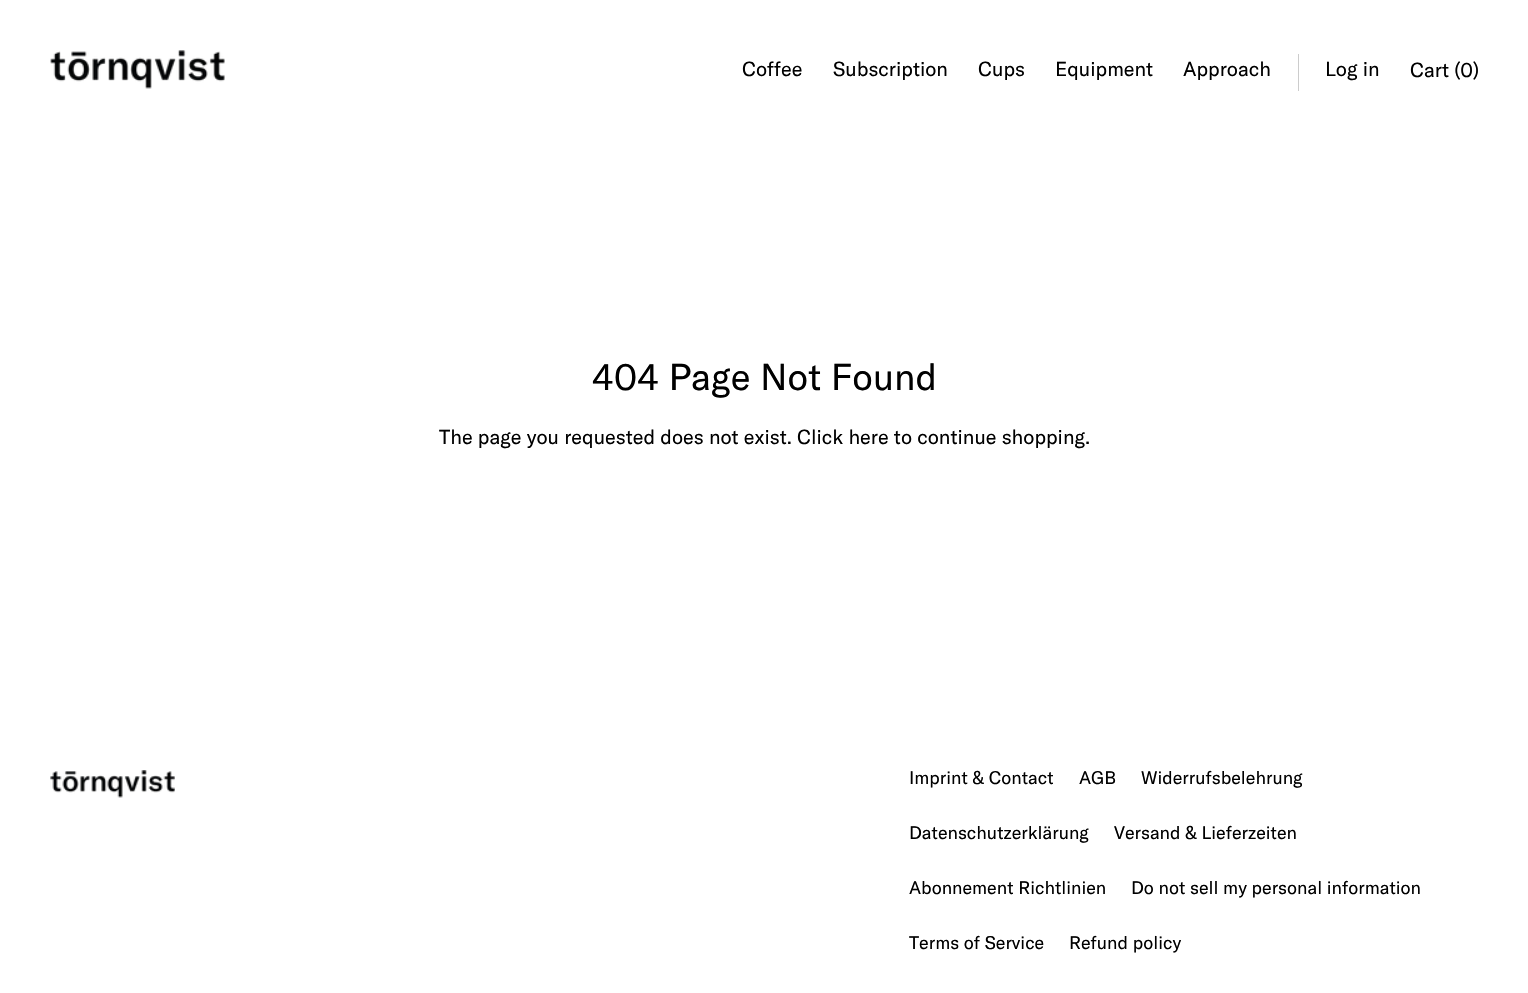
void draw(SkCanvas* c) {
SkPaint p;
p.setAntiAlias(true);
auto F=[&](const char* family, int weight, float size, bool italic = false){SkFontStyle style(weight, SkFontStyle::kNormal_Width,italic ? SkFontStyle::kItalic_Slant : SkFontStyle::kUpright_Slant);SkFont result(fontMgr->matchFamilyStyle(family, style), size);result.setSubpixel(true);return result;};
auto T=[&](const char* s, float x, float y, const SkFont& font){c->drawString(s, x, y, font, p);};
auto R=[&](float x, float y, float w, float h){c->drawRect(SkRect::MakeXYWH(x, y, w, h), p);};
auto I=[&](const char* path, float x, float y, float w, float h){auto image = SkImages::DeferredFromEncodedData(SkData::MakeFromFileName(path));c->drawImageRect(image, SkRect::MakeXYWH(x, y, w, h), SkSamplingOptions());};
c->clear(0xffffffff);
I("1.png",50,50,175,39);
p.setColor(0xffcccccc);
R(1298,54,1,37);
auto f1 = F("GT America",400,20);
p.setColor(0xff000000);
T("Coffee",742,76,f1);
T("Subscription",833,76,f1);
T("Cups",978,76,f1);
T("Equipment",1055,76,f1);
T("Approach",1183,76,f1);
T("Log in",1325,76,f1);
T("Cart (0)",1410,77,f1);
auto f2 = F("GT America",400,37);
T("404 Page Not Found",592,390,f2);
T("The page you requested does not exist. Click here to continue shopping.",439,444,f1);
I("2.png",50,770,125,28);
auto f3 = F("GT America",400,18);
T("Imprint & Contact",909,784,f3);
T("AGB",1079,784,f3);
T("Widerrufsbelehrung",1141,784,f3);
T("Datenschutzerklärung",909,839,f3);
T("Versand & Lieferzeiten",1114,839,f3);
T("Abonnement Richtlinien",909,894,f3);
T("Do not sell my personal information",1131,894,f3);
T("Terms of Service",909,949,f3);
T("Refund policy",1069,949,f3);
}
